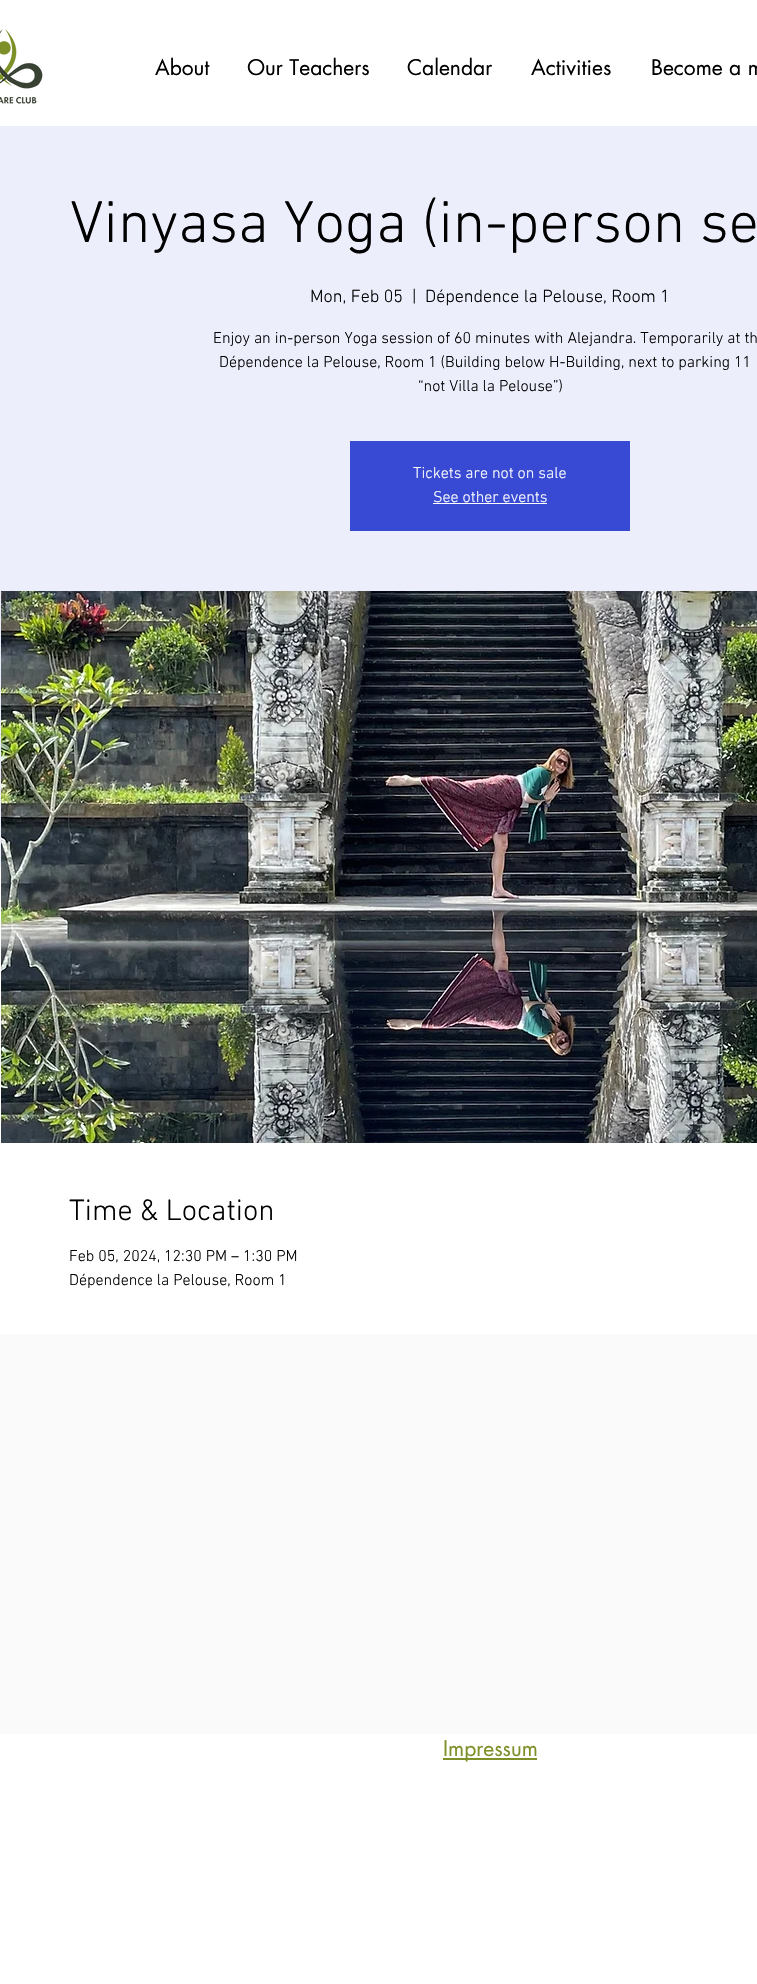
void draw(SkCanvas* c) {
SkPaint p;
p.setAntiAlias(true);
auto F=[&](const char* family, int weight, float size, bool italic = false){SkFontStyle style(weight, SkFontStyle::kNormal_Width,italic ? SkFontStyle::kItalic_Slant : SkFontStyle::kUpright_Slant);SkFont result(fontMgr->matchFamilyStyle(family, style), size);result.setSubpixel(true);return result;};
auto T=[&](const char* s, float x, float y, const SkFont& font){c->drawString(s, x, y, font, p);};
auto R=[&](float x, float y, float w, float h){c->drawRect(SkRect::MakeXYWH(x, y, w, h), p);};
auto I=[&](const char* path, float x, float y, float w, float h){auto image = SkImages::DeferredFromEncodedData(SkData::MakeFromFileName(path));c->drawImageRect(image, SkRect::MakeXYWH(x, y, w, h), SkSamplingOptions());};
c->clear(0xffffffff);
I("1.png",0,29,43,75);
auto f1 = F("futura",400,21);
p.setColor(0xff000000);
T("About",155,75,f1);
T("Our Teachers",247,75,f1);
T("Calendar",407,75,f1);
T("Activities",531,75,f1);
T("Become a m",651,75,f1);
p.setColor(0xffeceefb);
R(0,126,757,741);
auto f2 = F("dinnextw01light",300,60);
p.setColor(0xff000000);
T("Vinyasa Yoga (in-person se",70,242,f2);
auto f3 = F("dinnextw01light",300,18);
T("Mon, Feb 05",310,302,f3);
T("|",412,302,f3);
T("Dépendence la Pelouse, Room 1",425,302,f3);
auto f4 = F("dinnextw01light",300,16);
T("Enjoy an in-person Yoga session of 60 minutes with Alejandra. Temporarily at th",213,343,f4);
T("Dépendence la Pelouse, Room 1 (Building below H-Building, next to parking 11",219,367,f4);
T("“not Villa la Pelouse”)",418,391,f4);
p.setColor(0xff384ad3);
R(350,441,280,90);
p.setColor(0xffffffff);
T("Tickets are not on sale",413,478,f4);
T("See other events",433,502,f4);
R(433,503,114,1);
I("2.png",1,591,756,552);
auto f5 = F("dinnextw01light",300,30);
p.setColor(0xff000000);
T("Time & Location",69,1220,f5);
T("Feb 05, 2024, 12:30 PM – 1:30 PM",69,1261,f4);
T("Dépendence la Pelouse, Room 1",69,1285,f4);
p.setColor(0xfffafafa);
R(0,1334,757,400);
p.setColor(0xff7e9129);
R(443,1758,94,2);
T("Impressum",443,1756,f1);
}
